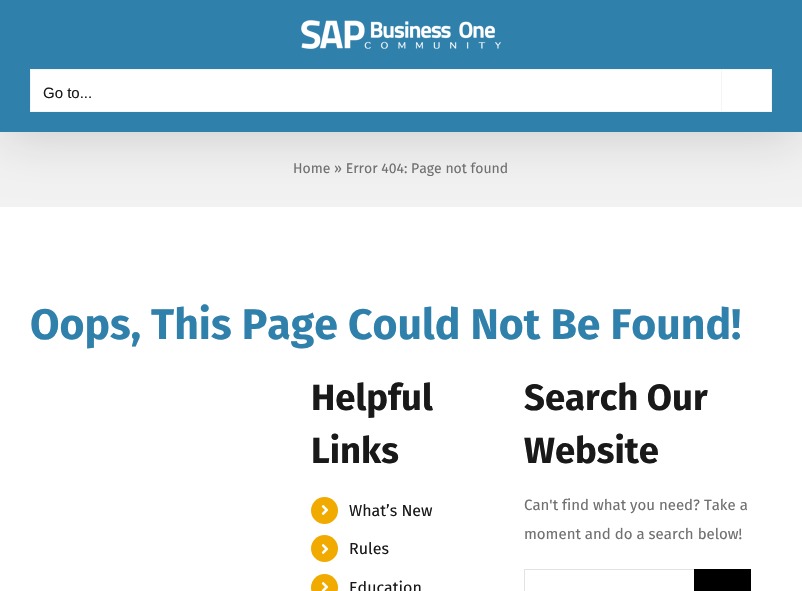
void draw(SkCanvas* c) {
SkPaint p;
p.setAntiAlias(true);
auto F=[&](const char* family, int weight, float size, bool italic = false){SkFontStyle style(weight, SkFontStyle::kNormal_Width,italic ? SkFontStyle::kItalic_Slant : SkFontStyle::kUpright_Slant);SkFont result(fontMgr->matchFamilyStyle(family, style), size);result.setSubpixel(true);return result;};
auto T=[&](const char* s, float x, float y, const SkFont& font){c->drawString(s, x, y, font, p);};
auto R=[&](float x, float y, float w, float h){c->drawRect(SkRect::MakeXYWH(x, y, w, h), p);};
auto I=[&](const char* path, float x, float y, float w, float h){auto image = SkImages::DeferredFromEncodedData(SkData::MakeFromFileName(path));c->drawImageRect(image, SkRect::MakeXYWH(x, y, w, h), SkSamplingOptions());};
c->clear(0xffffffff);
p.setColor(0xfff2f2f2);
R(0,132,802,75);
p.setColor(0x24000000);
p.setMaskFilter(SkMaskFilter::MakeBlur(kNormal_SkBlurStyle, 25));
c->drawRect(SkRect::MakeXYWH(2,12,798,128),p);
p.setMaskFilter(nullptr);
p.setColor(0xff3080ac);
R(0,0,802,132);
I("1.png",301,20,200,29);
p.setColor(0xffffffff);
c->drawRect(SkRect::MakeXYWH(30.5,69.5,741,42),p);
p.setStroke(true);
p.setStrokeWidth(1);
p.setColor(0xfff5f5f5);
c->drawRect(SkRect::MakeXYWH(30.5,69.5,741,42),p);
auto f1 = F("Liberation Sans",400,15);
p.setStroke(false);
p.setColor(0xff191919);
T("Go to...",43,98,f1);
p.setColor(0xfff5f5f5);
R(721,70,1,41);
auto f2 = F("Fira Sans",400,14);
p.setColor(0xff707070);
T("Home » Error 404: Page not found",293,173,f2);
auto f3 = F("Fira Sans",700,42.75);
p.setColor(0xff3080ac);
T("Oops, This Page Could Not Be Found!",30,339,f3);
auto f4 = F("Fira Sans",700,36.5);
p.setColor(0xff191919);
T("Helpful",311,410,f4);
T("Links",311,463,f4);
p.setColor(0xfff1aa00);
c->drawCircle(324.5,510.5,13.5,p);
I("2.png",321,505,8,10);
auto f5 = F("Fira Sans",400,16);
p.setColor(0xff191919);
T("What’s New",349,516,f5);
p.setColor(0xfff1aa00);
c->drawCircle(324.5,548.5,13.5,p);
I("2.png",321,544,8,10);
p.setColor(0xff191919);
T("Rules",349,554,f5);
p.setColor(0xfff1aa00);
c->drawCircle(324.5,587.5,13.5,p);
I("3.png",321,582,8,9);
p.setColor(0xff191919);
T("Education",349,593,f5);
T("Search Our",524,410,f4);
T("Website",524,463,f4);
auto f6 = F("Fira Sans",400,15);
p.setColor(0xff707070);
T("Can't find what you need? Take a",524,510,f6);
T("moment and do a search below!",524,539,f6);
p.setColor(0xffe3e3e3);
R(524,569,170,1);
R(524,569,1,22);
p.setColor(0xff000000);
R(694,569,57,22);
}
